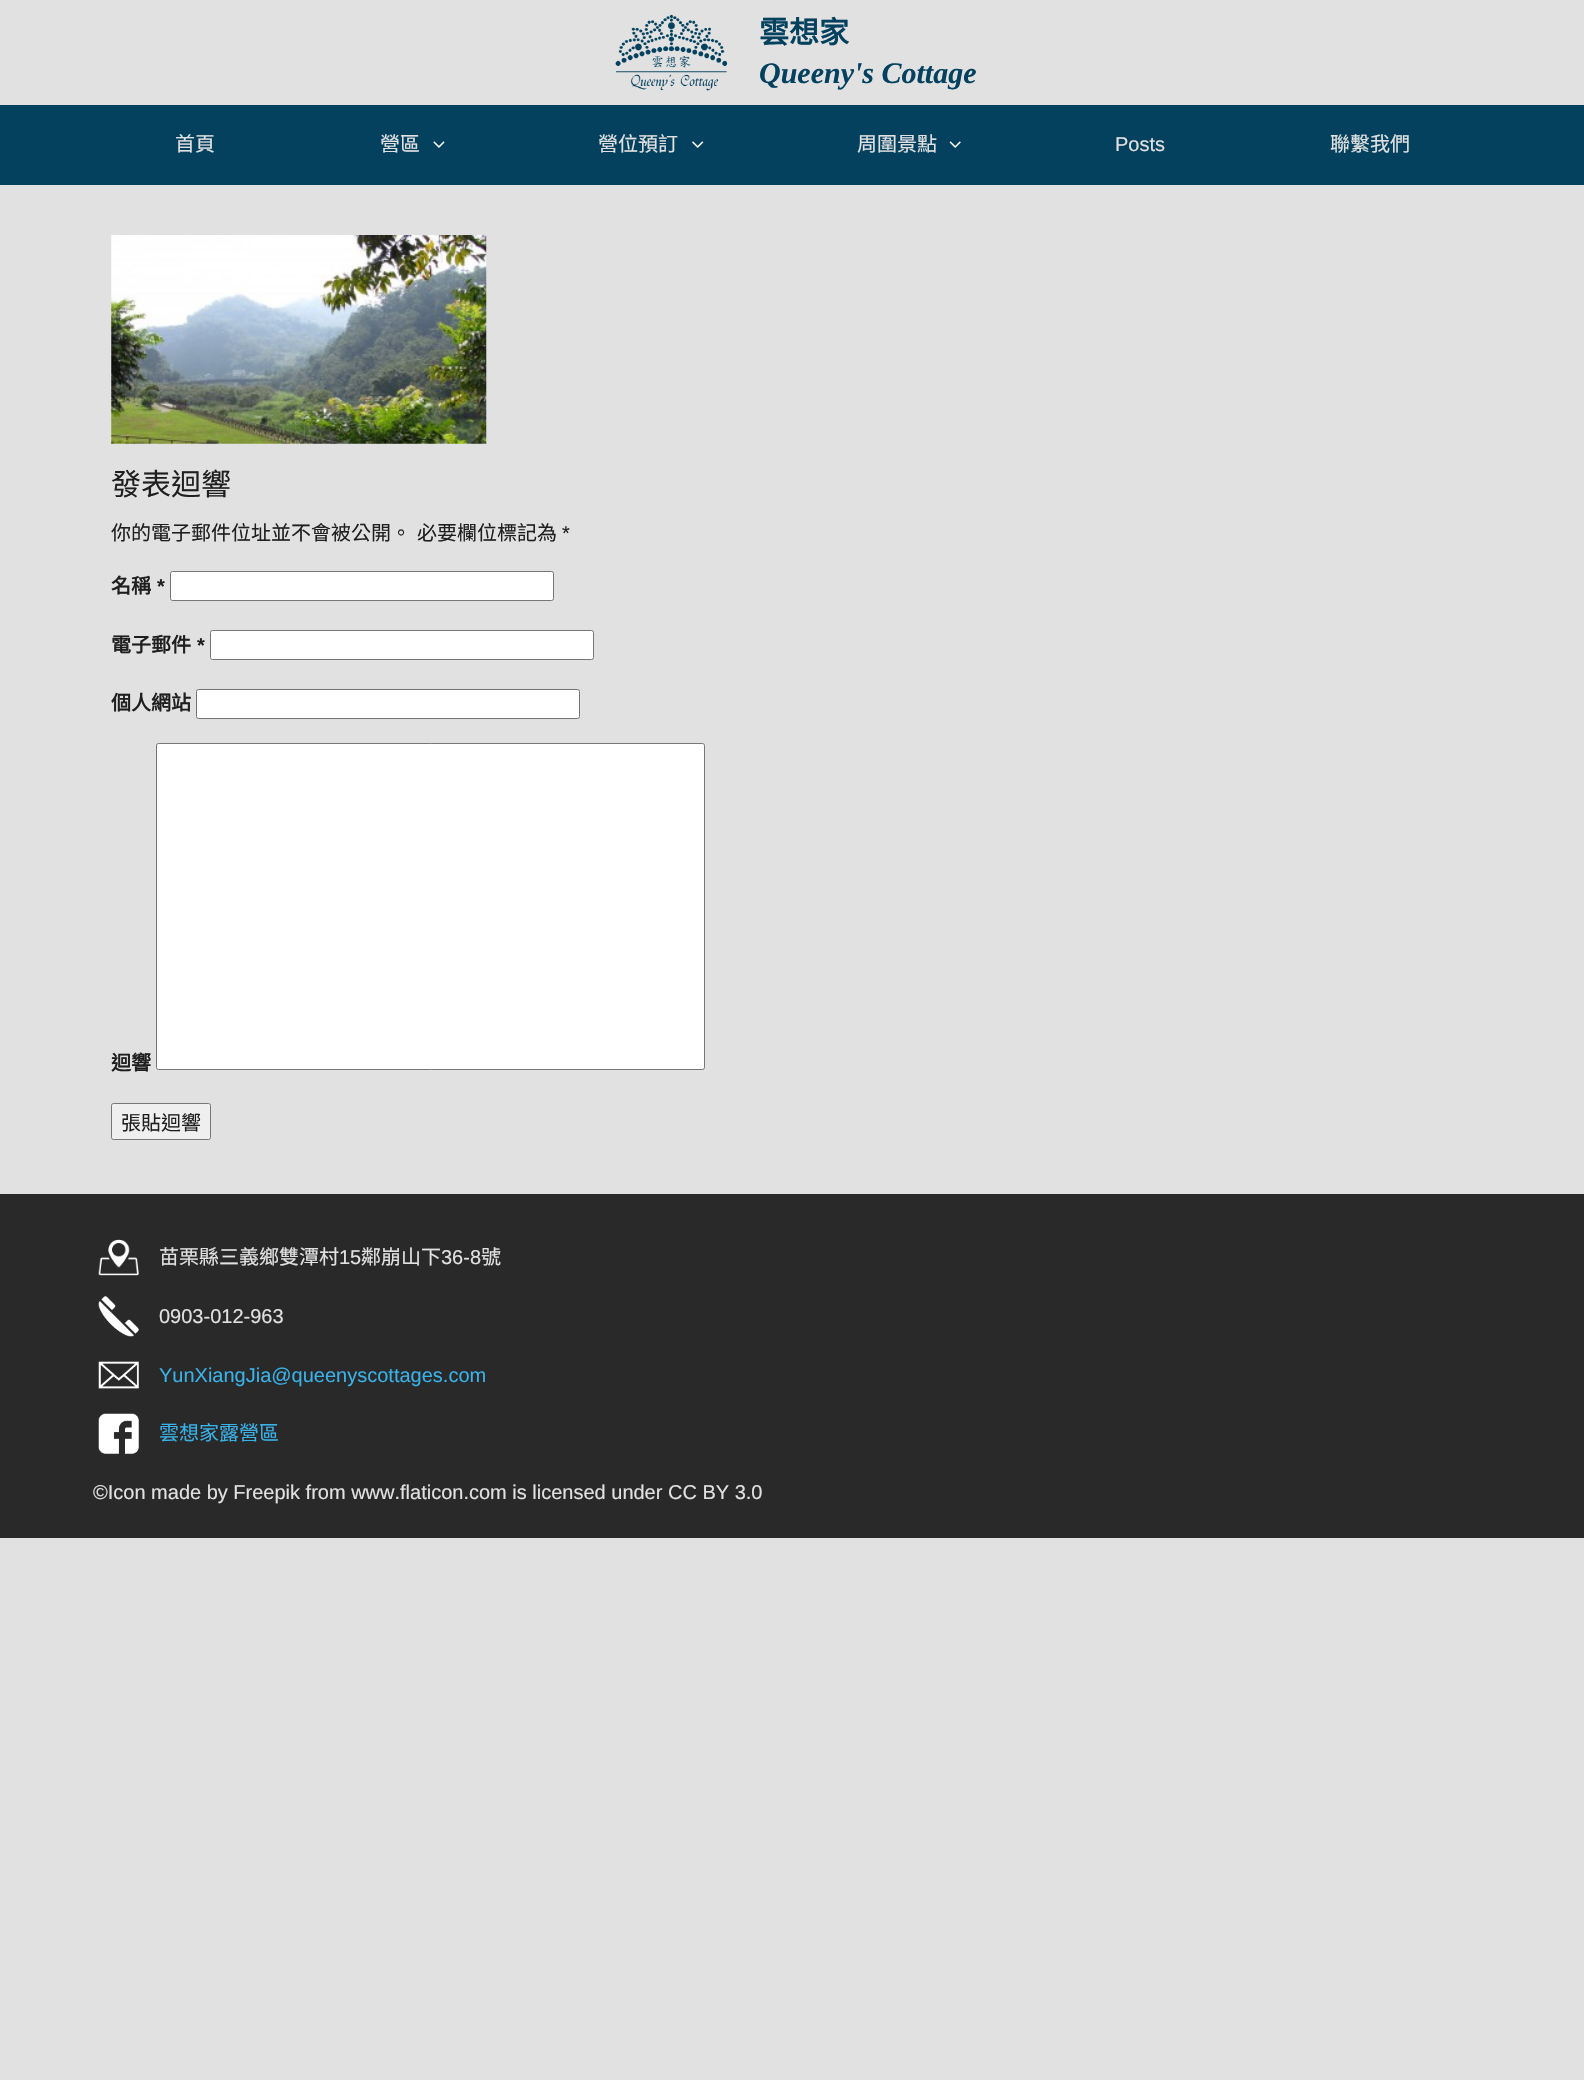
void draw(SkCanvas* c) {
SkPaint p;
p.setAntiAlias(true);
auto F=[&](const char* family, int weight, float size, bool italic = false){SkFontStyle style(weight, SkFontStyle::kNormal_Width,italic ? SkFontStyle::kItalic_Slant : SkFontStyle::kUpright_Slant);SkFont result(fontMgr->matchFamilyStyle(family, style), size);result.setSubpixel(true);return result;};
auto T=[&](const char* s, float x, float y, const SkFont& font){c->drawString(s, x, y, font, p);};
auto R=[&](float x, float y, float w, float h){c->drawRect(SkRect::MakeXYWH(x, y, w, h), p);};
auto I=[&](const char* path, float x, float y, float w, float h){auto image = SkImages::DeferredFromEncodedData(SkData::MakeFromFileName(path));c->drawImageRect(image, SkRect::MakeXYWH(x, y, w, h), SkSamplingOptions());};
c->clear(0xffe1e1e1);
I("1.png",615,14,113,77);
auto f1 = F("Noto Sans CJK TC",700,30);
p.setColor(0xff03415f);
T("雲想家",759,43,f1);
auto f2 = F("Liberation Serif",700,30,true);
T("Queeny's Cottage",759,83,f2);
R(0,105,1584,80);
auto f3 = F("Noto Sans CJK TC",400,20);
p.setColor(0xffe1e1e1);
T("首頁",175,151,f3);
T("營區",380,151,f3);
I("2.png",433,141,12,7);
T("營位預訂",598,151,f3);
I("3.png",692,141,12,7);
T("周圍景點",857,151,f3);
I("4.png",949,141,12,7);
auto f4 = F("Liberation Sans",400,20);
T("Posts",1115,151,f4);
T("聯繫我們",1330,151,f3);
I("5.png",111,235,376,209);
auto f5 = F("Noto Sans CJK TC",400,30);
p.setColor(0xff1f1f1f);
T("發表迴響",111,495,f5);
T("你的電子郵件位址並不會被公開。",111,540,f3);
T("必要欄位標記為",417,540,f3);
T("*",562,540,f4);
auto f6 = F("Noto Sans CJK TC",700,20);
T("名稱",111,593,f6);
auto f7 = F("Liberation Sans",700,20);
T("*",157,593,f7);
p.setColor(0xffffffff);
c->drawRoundRect(SkRect::MakeXYWH(170.5,571.5,383,29),2,2,p);
p.setStroke(true);
p.setStrokeWidth(1);
p.setColor(0xff767676);
c->drawRoundRect(SkRect::MakeXYWH(170.5,571.5,383,29),2,2,p);
p.setStroke(false);
p.setColor(0xff1f1f1f);
T("電子郵件",111,652,f6);
T("*",197,652,f7);
p.setColor(0xffffffff);
c->drawRoundRect(SkRect::MakeXYWH(210.5,630.5,383,29),2,2,p);
p.setStroke(true);
p.setColor(0xff767676);
c->drawRoundRect(SkRect::MakeXYWH(210.5,630.5,383,29),2,2,p);
p.setStroke(false);
p.setColor(0xff1f1f1f);
T("個人網站",111,710,f6);
p.setColor(0xffffffff);
c->drawRoundRect(SkRect::MakeXYWH(196.5,689.5,383,29),2,2,p);
p.setStroke(true);
p.setColor(0xff767676);
c->drawRoundRect(SkRect::MakeXYWH(196.5,689.5,383,29),2,2,p);
p.setStroke(false);
p.setColor(0xff1f1f1f);
T("迴響",111,1070,f6);
p.setColor(0xffffffff);
c->drawRoundRect(SkRect::MakeXYWH(156.5,743.5,548,326),2,2,p);
p.setStroke(true);
p.setColor(0xff767676);
c->drawRoundRect(SkRect::MakeXYWH(156.5,743.5,548,326),2,2,p);
p.setStroke(false);
p.setColor(0xffefefef);
c->drawRoundRect(SkRect::MakeXYWH(111.5,1103.5,99,36),2,2,p);
p.setStroke(true);
p.setColor(0xff767676);
c->drawRoundRect(SkRect::MakeXYWH(111.5,1103.5,99,36),2,2,p);
p.setStroke(false);
p.setColor(0xff1f1f1f);
T("張貼迴響",121,1130,f3);
p.setColor(0xff292929);
R(0,1194,1584,344);
I("6.png",98,1239,41,37);
p.setColor(0xffe1e1e1);
T("苗栗縣三義鄉雙潭村",159,1264,f3);
T("15",339,1264,f4);
T("鄰崩山下",361,1264,f3);
T("36-8",441,1264,f4);
T("號",481,1264,f3);
I("7.png",98,1296,41,41);
T("0903-012-963",159,1323,f4);
I("8.png",98,1361,41,28);
p.setColor(0xff39b2e9);
T("YunXiangJia@queenyscottages.com",159,1382,f4);
I("9.png",98,1413,41,41);
T("雲想家露營區",159,1440,f3);
p.setColor(0xffe1e1e1);
T("©Icon made by Freepik from www.flaticon.com is licensed under CC BY 3.0",93,1499,f4);
}
